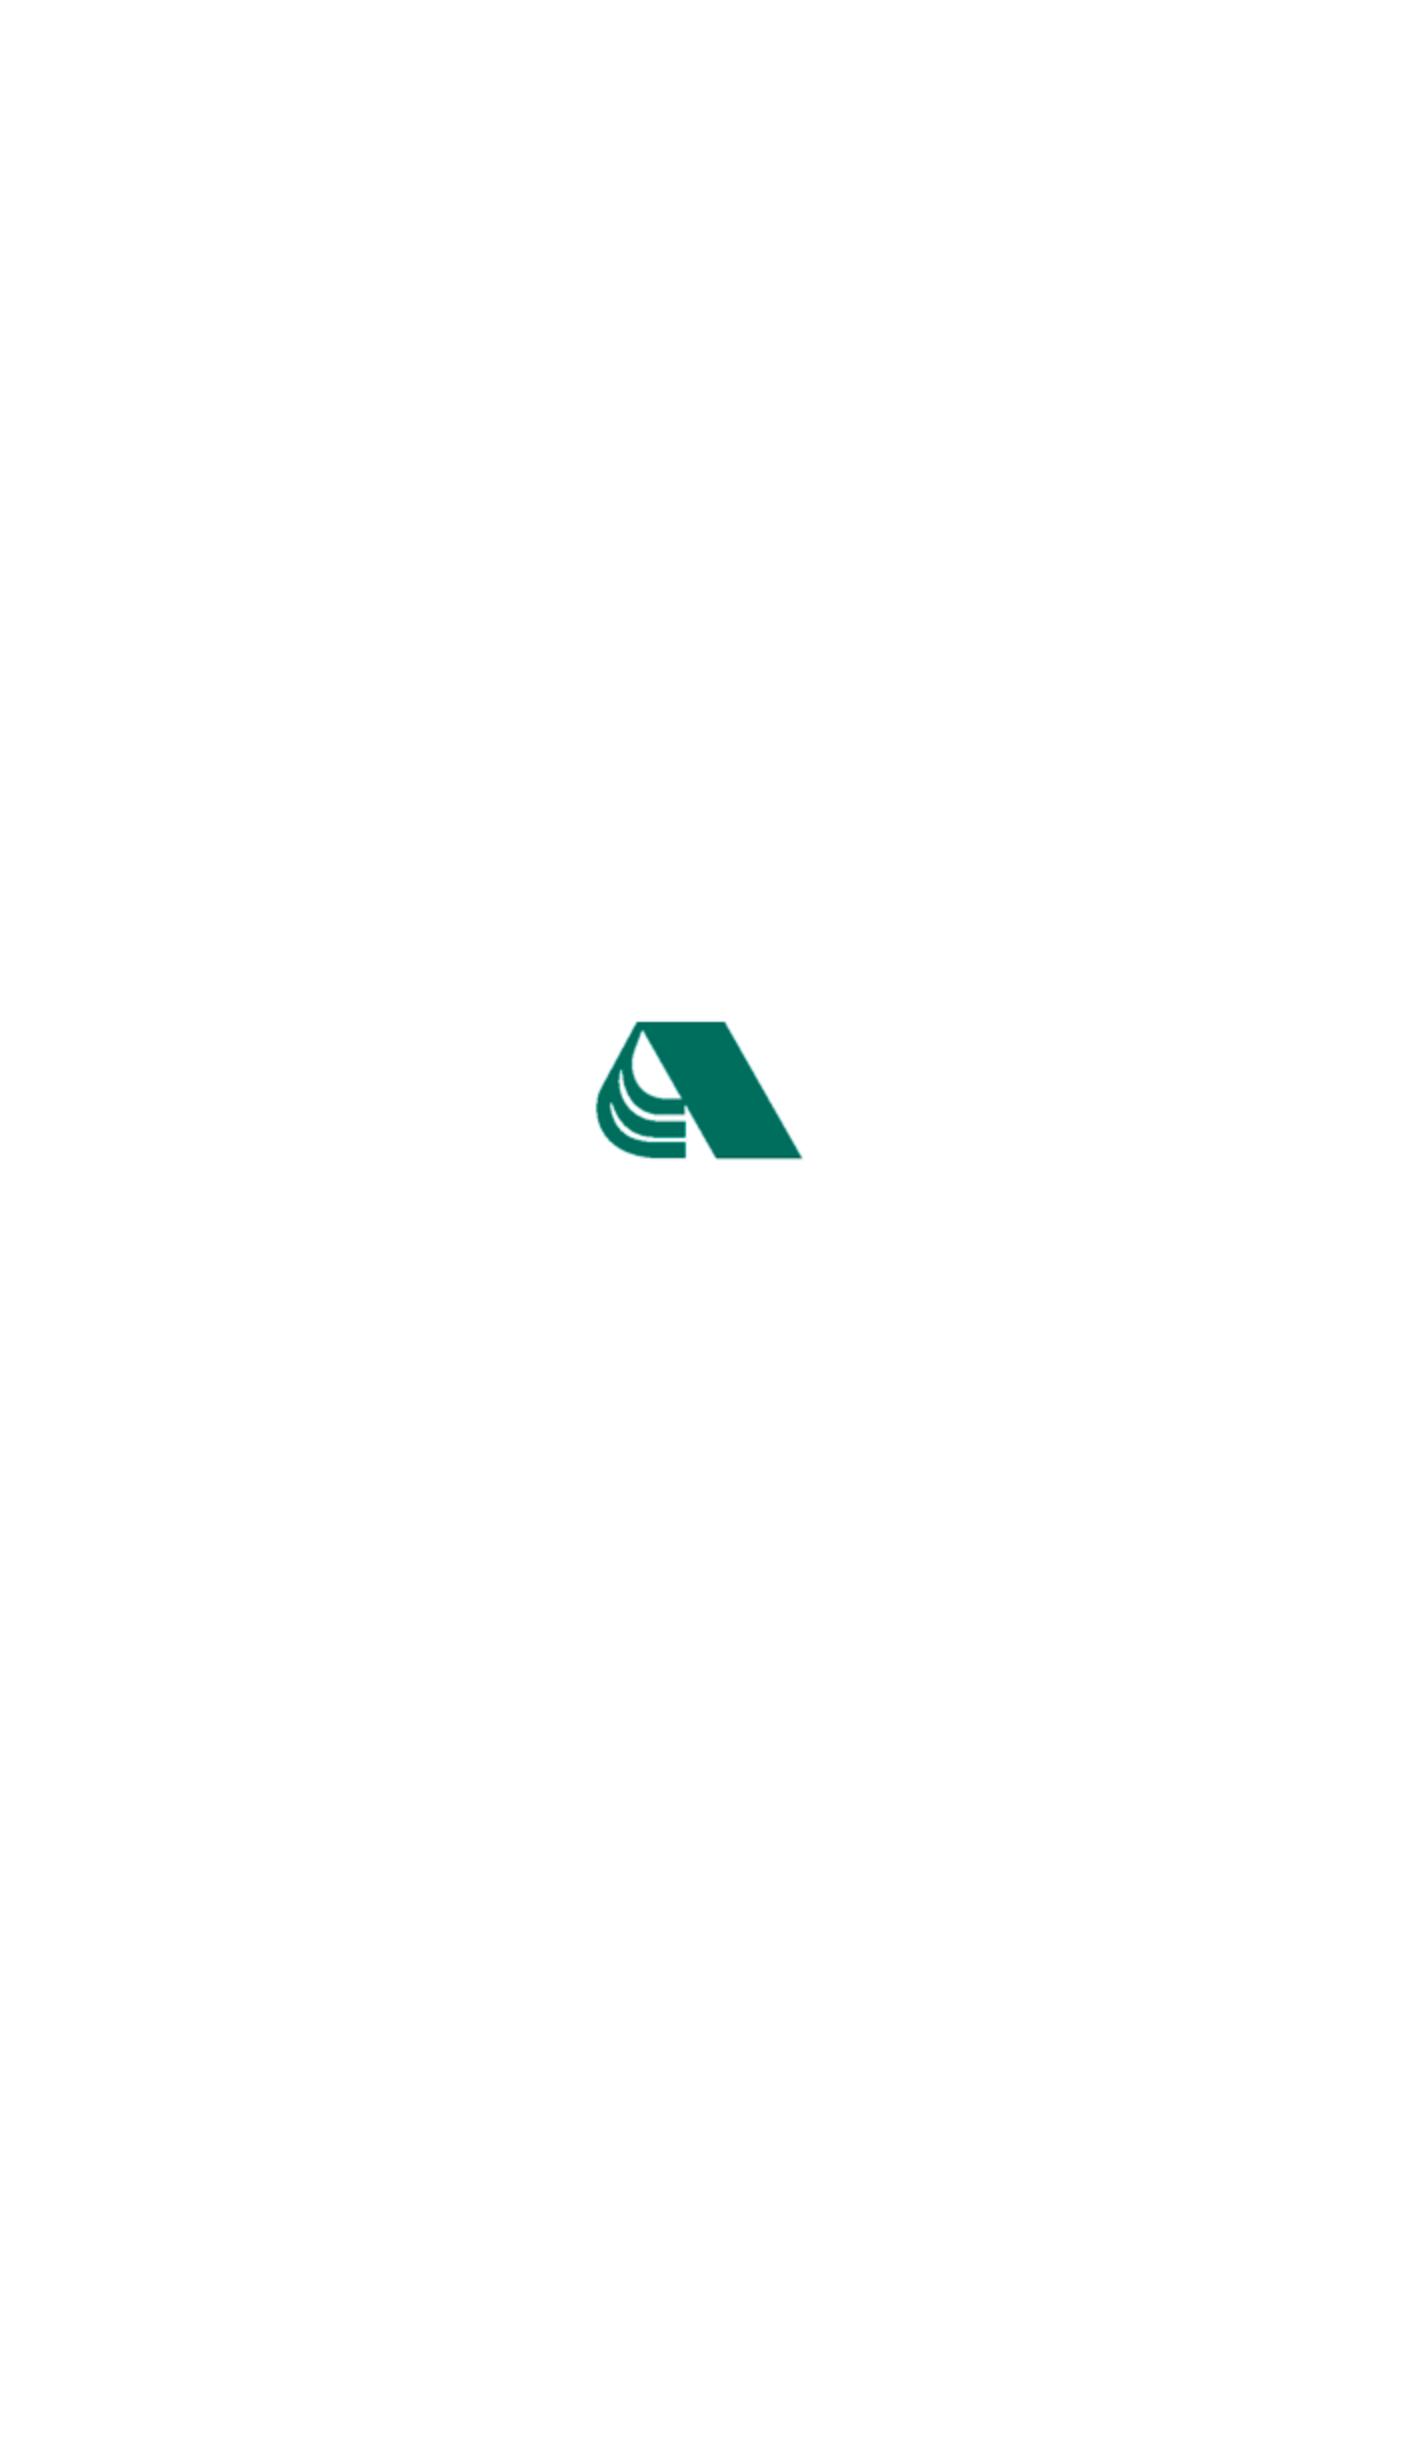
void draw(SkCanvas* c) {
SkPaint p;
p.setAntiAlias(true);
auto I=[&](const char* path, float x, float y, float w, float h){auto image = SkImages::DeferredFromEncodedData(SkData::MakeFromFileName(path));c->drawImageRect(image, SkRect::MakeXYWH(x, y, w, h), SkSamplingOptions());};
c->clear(0xffffffff);
I("1.png",595,1019,210,142);
}
